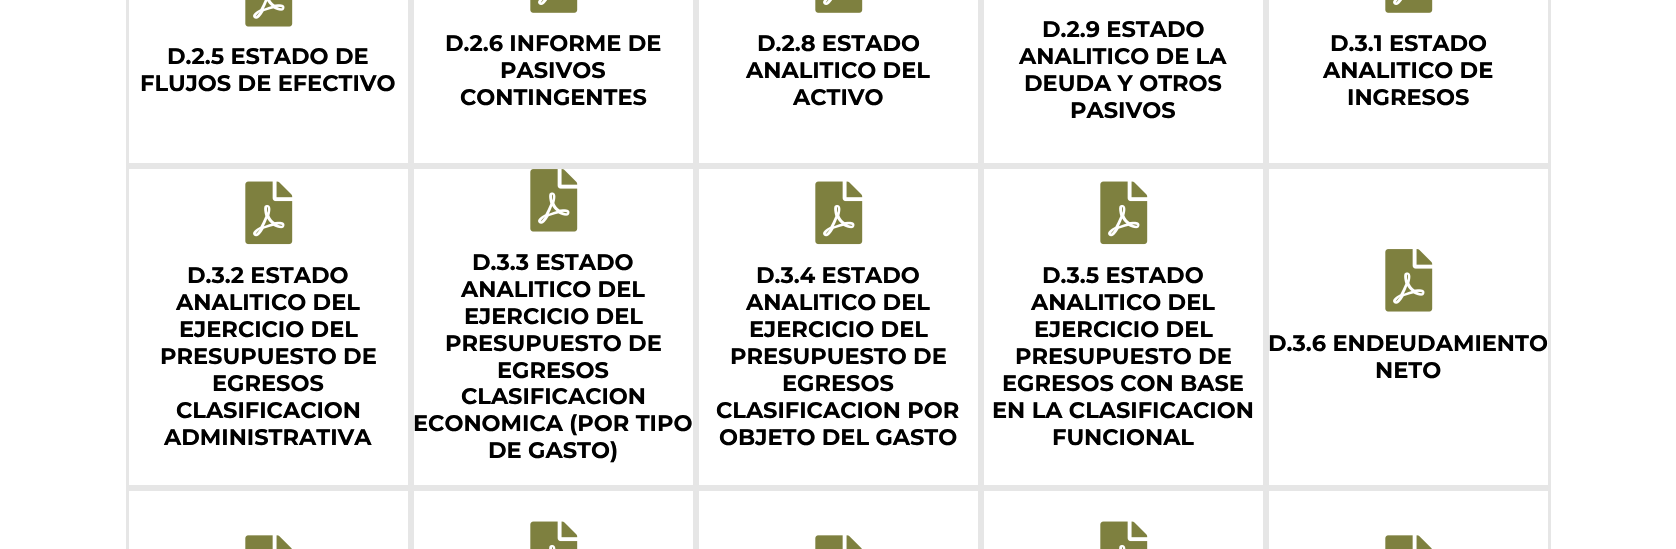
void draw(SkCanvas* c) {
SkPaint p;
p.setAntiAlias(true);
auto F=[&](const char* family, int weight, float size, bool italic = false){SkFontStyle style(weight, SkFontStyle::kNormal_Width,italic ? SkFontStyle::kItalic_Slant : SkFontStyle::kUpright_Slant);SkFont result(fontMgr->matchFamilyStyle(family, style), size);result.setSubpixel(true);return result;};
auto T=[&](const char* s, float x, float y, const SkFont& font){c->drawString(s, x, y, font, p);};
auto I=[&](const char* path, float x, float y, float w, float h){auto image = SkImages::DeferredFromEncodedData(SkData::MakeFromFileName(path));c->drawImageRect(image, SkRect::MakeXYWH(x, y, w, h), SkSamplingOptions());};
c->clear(0xffffffff);
p.setStroke(true);
p.setStrokeWidth(3);
p.setColor(0xffe6e6e6);
c->drawRect(SkRect::MakeXYWH(127.5,-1.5,282,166),p);
I("1.png",245,0,48,27);
auto f1 = F("Montserrat",700,22.5);
p.setStroke(false);
p.setColor(0xff000000);
T("D.2.5 ESTADO DE",167,64,f1);
T("FLUJOS DE EFECTIVO",140,91,f1);
p.setStroke(true);
p.setColor(0xffe6e6e6);
c->drawRect(SkRect::MakeXYWH(412.5,-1.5,282,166),p);
I("2.png",530,0,48,13);
p.setStroke(false);
p.setColor(0xff000000);
T("D.2.6 INFORME DE",445,51,f1);
T("PASIVOS",500,78,f1);
T("CONTINGENTES",460,105,f1);
p.setStroke(true);
p.setColor(0xffe6e6e6);
c->drawRect(SkRect::MakeXYWH(697.5,-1.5,282,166),p);
I("2.png",815,0,48,13);
p.setStroke(false);
p.setColor(0xff000000);
T("D.2.8 ESTADO",757,51,f1);
T("ANALITICO DEL",746,78,f1);
T("ACTIVO",793,105,f1);
p.setStroke(true);
p.setColor(0xffe6e6e6);
c->drawRect(SkRect::MakeXYWH(982.5,-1.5,282,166),p);
p.setStroke(false);
p.setColor(0xff000000);
T("D.2.9 ESTADO",1042,37,f1);
T("ANALITICO DE LA",1019,64,f1);
T("DEUDA Y OTROS",1024,91,f1);
T("PASIVOS",1070,118,f1);
p.setStroke(true);
p.setColor(0xffe6e6e6);
c->drawRect(SkRect::MakeXYWH(1267.5,-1.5,282,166),p);
I("2.png",1385,0,48,13);
p.setStroke(false);
p.setColor(0xff000000);
T("D.3.1 ESTADO",1330,51,f1);
T("ANALITICO DE",1323,78,f1);
T("INGRESOS",1347,105,f1);
p.setStroke(true);
p.setColor(0xffe6e6e6);
c->drawRect(SkRect::MakeXYWH(127.5,167.5,282,319),p);
I("3.png",245,181,48,64);
p.setStroke(false);
p.setColor(0xff000000);
T("D.3.2 ESTADO",187,283,f1);
T("ANALITICO DEL",176,310,f1);
T("EJERCICIO DEL",179,337,f1);
T("PRESUPUESTO DE",160,364,f1);
T("EGRESOS",212,391,f1);
T("CLASIFICACION",176,418,f1);
T("ADMINISTRATIVA",164,445,f1);
p.setStroke(true);
p.setColor(0xffe6e6e6);
c->drawRect(SkRect::MakeXYWH(412.5,167.5,282,319),p);
I("4.png",530,169,48,63);
p.setStroke(false);
p.setColor(0xff000000);
T("D.3.3 ESTADO",472,270,f1);
T("ANALITICO DEL",461,297,f1);
T("EJERCICIO DEL",464,324,f1);
T("PRESUPUESTO DE",445,351,f1);
T("EGRESOS",497,378,f1);
T("CLASIFICACION",461,404,f1);
T("ECONOMICA (POR TIPO",413,431,f1);
T("DE GASTO)",488,458,f1);
p.setStroke(true);
p.setColor(0xffe6e6e6);
c->drawRect(SkRect::MakeXYWH(697.5,167.5,282,319),p);
I("3.png",815,181,48,64);
p.setStroke(false);
p.setColor(0xff000000);
T("D.3.4 ESTADO",756,283,f1);
T("ANALITICO DEL",746,310,f1);
T("EJERCICIO DEL",749,337,f1);
T("PRESUPUESTO DE",730,364,f1);
T("EGRESOS",782,391,f1);
T("CLASIFICACION POR",716,418,f1);
T("OBJETO DEL GASTO",719,445,f1);
p.setStroke(true);
p.setColor(0xffe6e6e6);
c->drawRect(SkRect::MakeXYWH(982.5,167.5,282,319),p);
I("3.png",1100,181,48,64);
p.setStroke(false);
p.setColor(0xff000000);
T("D.3.5 ESTADO",1042,283,f1);
T("ANALITICO DEL",1031,310,f1);
T("EJERCICIO DEL",1034,337,f1);
T("PRESUPUESTO DE",1015,364,f1);
T("EGRESOS CON BASE",1002,391,f1);
T("EN LA CLASIFICACION",992,418,f1);
T("FUNCIONAL",1052,445,f1);
p.setStroke(true);
p.setColor(0xffe6e6e6);
c->drawRect(SkRect::MakeXYWH(1267.5,167.5,282,319),p);
I("4.png",1385,249,48,63);
p.setStroke(false);
p.setColor(0xff000000);
T("D.3.6 ENDEUDAMIENTO",1268,351,f1);
T("NETO",1375,378,f1);
p.setStroke(true);
p.setColor(0xffe6e6e6);
c->drawRect(SkRect::MakeXYWH(127.5,489.5,282,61),p);
I("5.png",245,535,47,14);
c->drawRect(SkRect::MakeXYWH(412.5,489.5,282,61),p);
I("6.png",530,521,48,28);
c->drawRect(SkRect::MakeXYWH(697.5,489.5,282,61),p);
I("5.png",815,535,47,14);
c->drawRect(SkRect::MakeXYWH(982.5,489.5,282,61),p);
I("6.png",1100,521,48,28);
c->drawRect(SkRect::MakeXYWH(1267.5,489.5,282,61),p);
I("5.png",1385,535,47,14);
}
